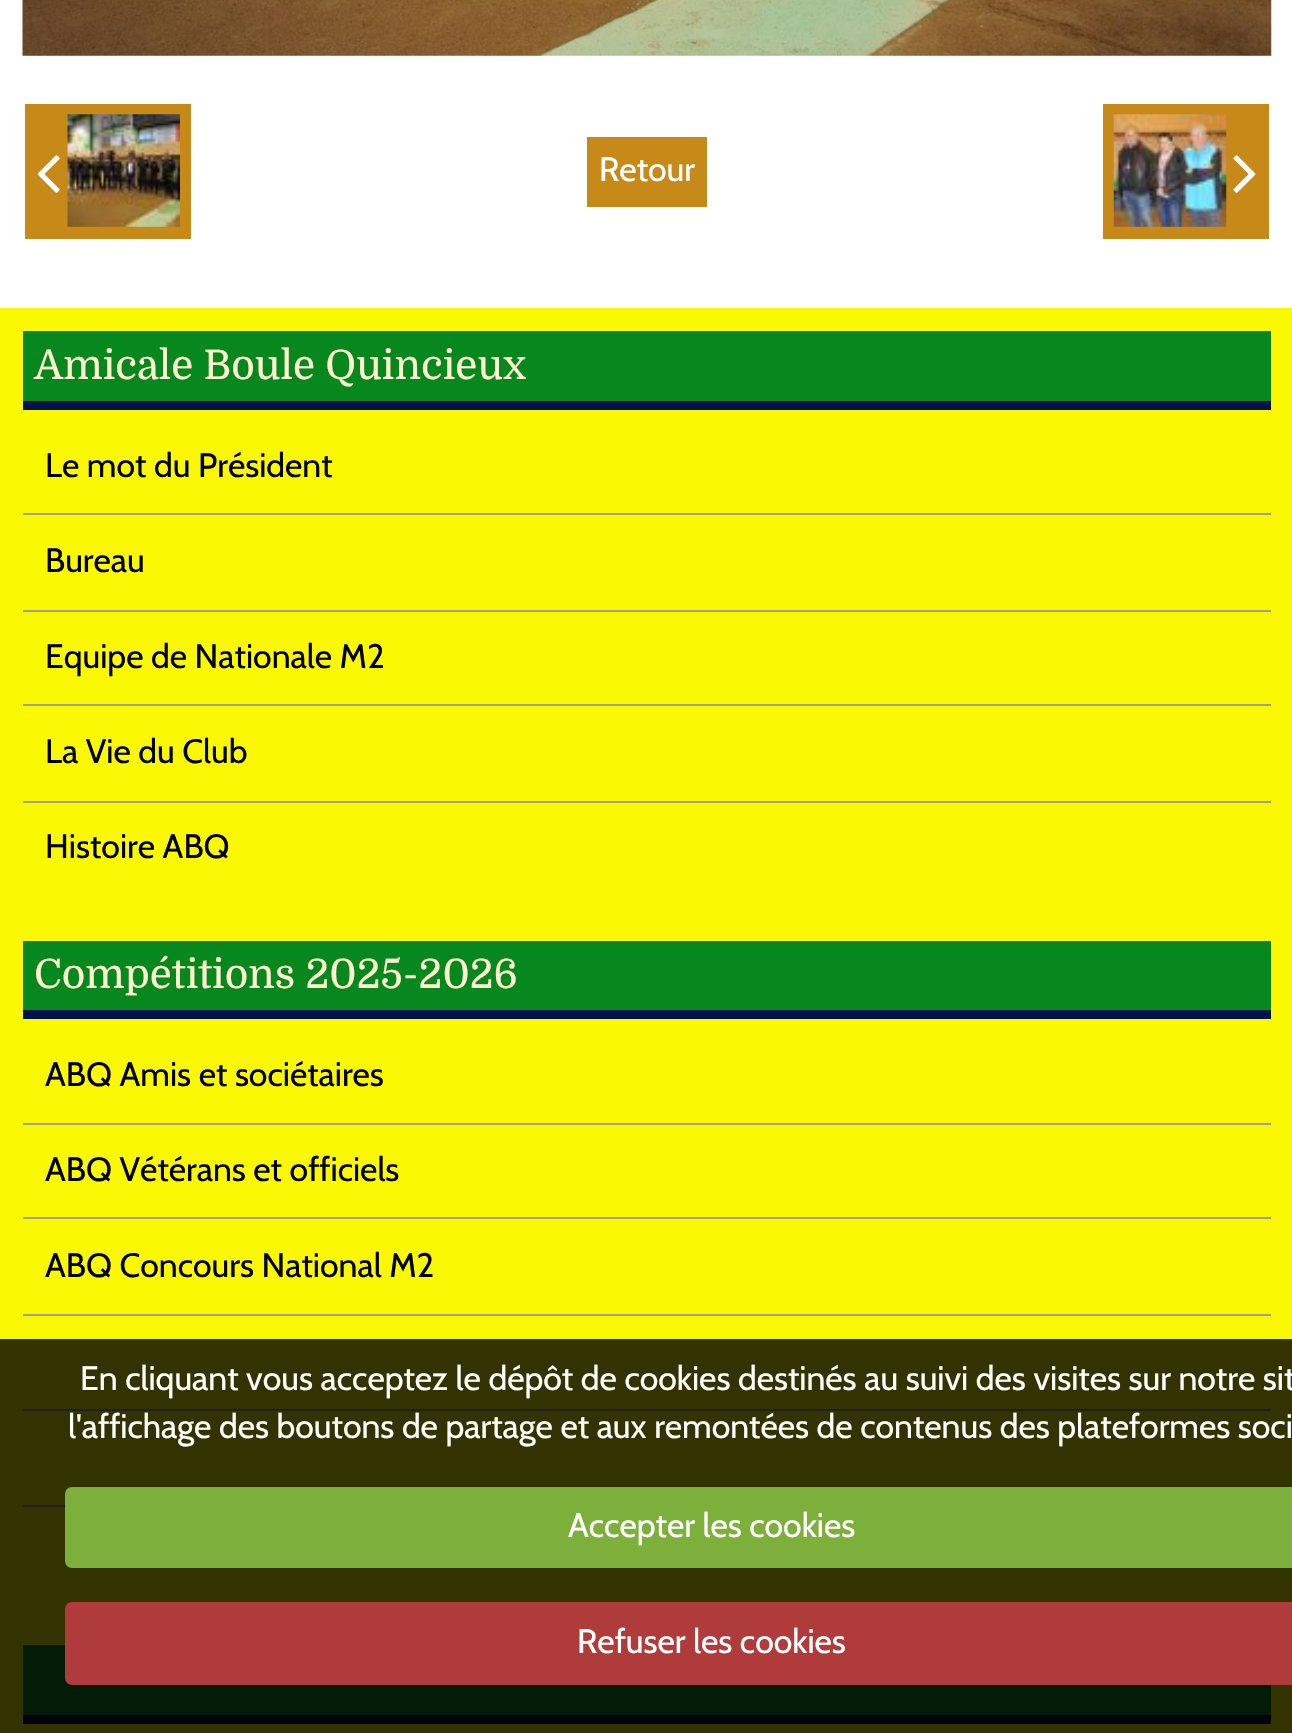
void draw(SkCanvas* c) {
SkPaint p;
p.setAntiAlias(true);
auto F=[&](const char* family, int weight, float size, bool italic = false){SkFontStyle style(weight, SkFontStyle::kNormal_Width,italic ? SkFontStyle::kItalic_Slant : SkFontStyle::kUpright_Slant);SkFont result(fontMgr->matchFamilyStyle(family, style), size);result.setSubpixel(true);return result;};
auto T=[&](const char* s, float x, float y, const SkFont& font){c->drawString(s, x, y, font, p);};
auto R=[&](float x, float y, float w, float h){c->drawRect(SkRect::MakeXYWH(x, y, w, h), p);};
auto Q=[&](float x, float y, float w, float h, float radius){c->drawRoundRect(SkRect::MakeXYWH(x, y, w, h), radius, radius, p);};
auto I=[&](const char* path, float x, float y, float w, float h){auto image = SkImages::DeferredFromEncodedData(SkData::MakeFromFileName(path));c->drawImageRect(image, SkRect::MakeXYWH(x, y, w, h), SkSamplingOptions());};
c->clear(0xffffffff);
I("1.png",22,0,1250,56);
p.setColor(0xffc78917);
R(25,104,166,135);
I("2.png",37,155,23,38);
I("3.png",67,114,113,113);
R(587,137,120,70);
auto f1 = F("Cabin",400,33.75);
p.setColor(0xffffffff);
T("Retour",599,181,f1);
p.setColor(0xffc78917);
R(1103,104,166,135);
I("4.png",1113,114,114,113);
I("5.png",1233,155,23,38);
p.setColor(0xfffbf804);
R(0,308,1292,1425);
p.setColor(0xff06881f);
R(23,331,1248,70);
p.setColor(0xff00124b);
R(23,401,1248,9);
auto f2 = F("Domine",400,40.5);
p.setColor(0xfffff2cc);
T("Amicale Boule Quincieux",34,379,f2);
p.setColor(0xffa79f8d);
R(23,513,1248,2);
p.setColor(0xff000000);
T("Le mot du Président",45,477,f1);
p.setColor(0xffa79f8d);
R(23,610,1248,2);
p.setColor(0xff000000);
T("Bureau",45,572,f1);
p.setColor(0xffa79f8d);
R(23,704,1248,2);
p.setColor(0xff000000);
T("Equipe de Nationale M2",45,668,f1);
p.setColor(0xffa79f8d);
R(23,801,1248,2);
p.setColor(0xff000000);
T("La Vie du Club",45,763,f1);
T("Histoire ABQ",45,858,f1);
p.setColor(0xff06881f);
R(23,941,1248,69);
p.setColor(0xff00124b);
R(23,1010,1248,9);
p.setColor(0xfffff2cc);
T("Compétitions 2025-2026",34,988,f2);
p.setColor(0xffa79f8d);
R(23,1123,1248,2);
p.setColor(0xff000000);
T("ABQ Amis et sociétaires",45,1086,f1);
p.setColor(0xffa79f8d);
R(23,1217,1248,2);
p.setColor(0xff000000);
T("ABQ Vétérans et officiels",45,1181,f1);
p.setColor(0xffa79f8d);
R(23,1314,1248,2);
p.setColor(0xff000000);
T("ABQ Concours National M2",45,1277,f1);
p.setColor(0xffa79f8d);
R(23,1409,1248,2);
R(23,1505,42,2);
p.setColor(0xff06881f);
R(23,1645,1248,70);
p.setColor(0xff00124b);
R(23,1715,1248,9);
p.setColor(0xcc000000);
R(0,1339,1292,394);
p.setColor(0xffffffff);
T("En cliquant vous acceptez le dépôt de cookies destinés au suivi des visites sur notre sit",80,1390,f1);
T("l'affichage des boutons de partage et aux remontées de contenus des plateformes soci",68,1438,f1);
p.setColor(0xff7daf3b);
Q(65,1487,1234,81,7);
p.setColor(0xffffffff);
T("Accepter les cookies",568,1537,f1);
p.setColor(0xffaf3b3b);
Q(65,1602,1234,83,7);
p.setColor(0xffffffff);
T("Refuser les cookies",577,1653,f1);
}
